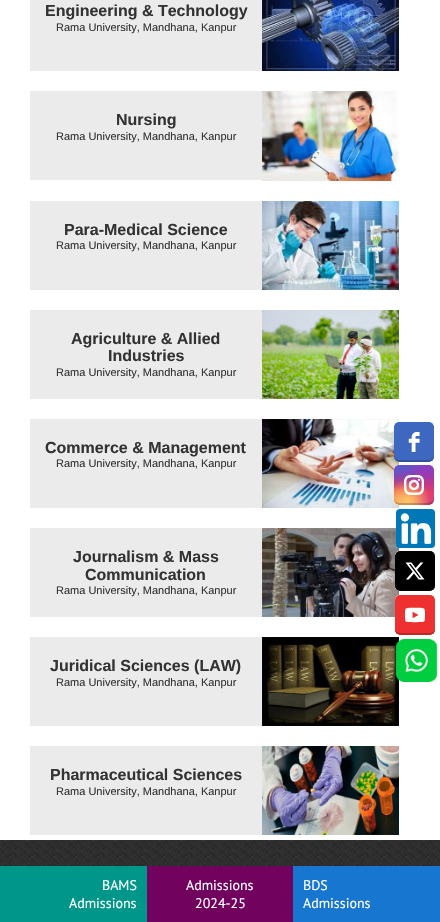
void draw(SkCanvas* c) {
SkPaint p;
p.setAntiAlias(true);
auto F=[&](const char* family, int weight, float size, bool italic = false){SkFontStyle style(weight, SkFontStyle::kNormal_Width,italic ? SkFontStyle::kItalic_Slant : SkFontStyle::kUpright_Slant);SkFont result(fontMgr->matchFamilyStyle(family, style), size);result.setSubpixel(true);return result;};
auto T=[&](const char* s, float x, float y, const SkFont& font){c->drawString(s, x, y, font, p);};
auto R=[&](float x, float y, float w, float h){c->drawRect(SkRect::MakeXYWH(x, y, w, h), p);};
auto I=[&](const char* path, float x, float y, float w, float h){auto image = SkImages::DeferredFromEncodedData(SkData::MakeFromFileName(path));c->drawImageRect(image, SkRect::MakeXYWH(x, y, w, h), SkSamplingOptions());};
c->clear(0xffffffff);
p.setColor(0xffebebeb);
R(30,0,232,71);
auto f1 = F("Liberation Sans",700,16);
p.setColor(0xff333333);
T("Engineering & Technology",45,16,f1);
auto f2 = F("Liberation Sans",400,11);
T("Rama University, Mandhana, Kanpur",56,31,f2);
I("1.png",262,0,137,71);
p.setColor(0xffebebeb);
R(30,91,232,89);
p.setColor(0xff333333);
T("Nursing",116,125,f1);
T("Rama University, Mandhana, Kanpur",56,140,f2);
I("2.png",262,91,137,90);
p.setColor(0xffebebeb);
R(30,201,232,89);
p.setColor(0xff333333);
T("Para-Medical Science",64,235,f1);
T("Rama University, Mandhana, Kanpur",56,249,f2);
I("3.png",262,201,137,89);
p.setColor(0xffebebeb);
R(30,310,232,89);
p.setColor(0xff333333);
T("Agriculture & Allied",71,344,f1);
T("Industries",108,361,f1);
T("Rama University, Mandhana, Kanpur",56,376,f2);
I("4.png",262,310,137,89);
p.setColor(0xffebebeb);
R(30,419,232,89);
p.setColor(0xff333333);
T("Commerce & Management",45,453,f1);
T("Rama University, Mandhana, Kanpur",56,467,f2);
I("5.png",262,419,137,89);
p.setColor(0xffebebeb);
R(30,528,232,89);
p.setColor(0xff333333);
T("Journalism & Mass",73,562,f1);
T("Communication",85,580,f1);
T("Rama University, Mandhana, Kanpur",56,594,f2);
I("6.png",262,528,137,89);
p.setColor(0xffebebeb);
R(30,637,232,89);
p.setColor(0xff333333);
T("Juridical Sciences (LAW)",50,671,f1);
T("Rama University, Mandhana, Kanpur",56,686,f2);
I("7.png",262,637,137,89);
p.setColor(0xffebebeb);
R(30,746,232,89);
p.setColor(0xff333333);
T("Pharmaceutical Sciences",50,780,f1);
T("Rama University, Mandhana, Kanpur",56,795,f2);
I("8.png",262,746,137,89);
I("9.png",394,422,40,40);
I("10.png",394,465,40,40);
I("11.png",396,509,39,39);
I("12.png",395,551,40,40);
I("13.png",395,595,40,40);
I("14.png",395,639,43,43);
I("15.png",0,840,440,26);
p.setColor(0xff00978a);
R(0,866,147,56);
auto f3 = F("PT Sans",400,14);
p.setColor(0xffffffff);
T("BAMS",102,890,f3);
T("Admissions",69,908,f3);
p.setColor(0xff71025d);
R(147,866,146,56);
p.setColor(0xffffffff);
T("Admissions",186,890,f3);
T("2024-25",195,908,f3);
p.setColor(0xff1776d0);
R(293,866,147,56);
p.setColor(0xffffffff);
T("BDS",303,890,f3);
T("Admissions",303,908,f3);
}
